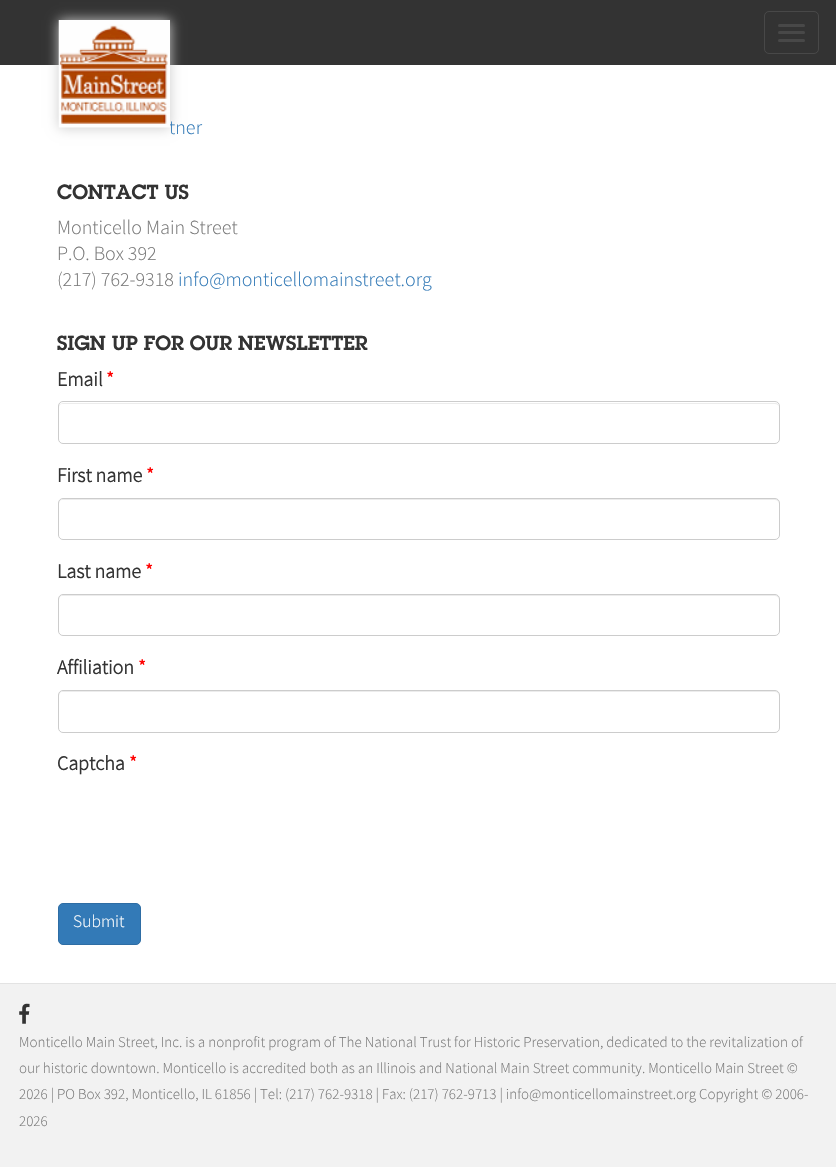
void draw(SkCanvas* c) {
SkPaint p;
p.setAntiAlias(true);
auto F=[&](const char* family, int weight, float size, bool italic = false){SkFontStyle style(weight, SkFontStyle::kNormal_Width,italic ? SkFontStyle::kItalic_Slant : SkFontStyle::kUpright_Slant);SkFont result(fontMgr->matchFamilyStyle(family, style), size);result.setSubpixel(true);return result;};
auto T=[&](const char* s, float x, float y, const SkFont& font){c->drawString(s, x, y, font, p);};
auto R=[&](float x, float y, float w, float h){c->drawRect(SkRect::MakeXYWH(x, y, w, h), p);};
auto Q=[&](float x, float y, float w, float h, float radius){c->drawRoundRect(SkRect::MakeXYWH(x, y, w, h), radius, radius, p);};
auto I=[&](const char* path, float x, float y, float w, float h){auto image = SkImages::DeferredFromEncodedData(SkData::MakeFromFileName(path));c->drawImageRect(image, SkRect::MakeXYWH(x, y, w, h), SkSamplingOptions());};
auto P=[&](const char* data, bool evenOdd = false){SkPath result = *SkParsePath::FromSVGString(data);if (evenOdd) result.setFillType(SkPathFillType::kEvenOdd);return result;};
c->clear(0xffffffff);
p.setColor(0xff333333);
R(0,0,836,65);
p.setColor(0xffcccccc);
p.setMaskFilter(SkMaskFilter::MakeBlur(kNormal_SkBlurStyle, 6));
c->drawRect(SkRect::MakeXYWH(59,20,111,108),p);
p.setMaskFilter(nullptr);
auto f1 = F("Source Sans Pro",300,20);
p.setColor(0xff337ab7);
T("tner",169,134,f1);
I("1.png",58,20,112,108);
p.setStroke(true);
p.setStrokeWidth(1);
p.setColor(0xff484848);
c->drawRoundRect(SkRect::MakeXYWH(764.5,11.5,54,42),4.5,4.5,p);
p.setStroke(false);
Q(778,24,27,3,1.5);
Q(778,31,27,3,1.5);
Q(778,39,27,3,1.5);
auto f2 = F("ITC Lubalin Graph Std",600,20);
p.setColor(0xff333333);
T("CONTACT US",57,199,f2);
p.setColor(0xff797979);
T("Monticello Main Street",57,234,f1);
T("P.O. Box 392",57,260,f1);
T("(217) 762-9318",57,286,f1);
p.setColor(0xff337ab7);
T("info@monticellomainstreet.org",178,286,f1);
p.setColor(0xff333333);
T("SIGN UP FOR OUR NEWSLETTER",57,350,f2);
auto f3 = F("Source Sans Pro",700,20);
T("Email",57,386,f3);
p.setColor(0xffff0000);
T("*",106,386,f3);
p.setColor(0xffececec);
c->drawPath(P("M62 404h713c2 0 4 1 4 4c0-3-1-5-4-5h-712l-3 1l-1 1v3c0-3 1-4 3-4z"),p);
p.setStroke(true);
p.setColor(0xffcccccc);
c->drawRoundRect(SkRect::MakeXYWH(58.5,401.5,721,42),4.5,4.5,p);
p.setStroke(false);
p.setColor(0xff333333);
T("First name",57,482,f3);
p.setColor(0xffff0000);
T("*",146,482,f3);
p.setColor(0xffececec);
c->drawPath(P("M62 500h713c2 0 4 2 4 4c0-3-1-5-4-5h-712l-3 1l-1 1v3c0-2 1-4 3-4z"),p);
p.setStroke(true);
p.setColor(0xffcccccc);
c->drawRoundRect(SkRect::MakeXYWH(58.5,498.5,721,41),4.5,4.5,p);
p.setStroke(false);
p.setColor(0xff333333);
T("Last name",57,578,f3);
p.setColor(0xffff0000);
T("*",145,578,f3);
p.setColor(0xffececec);
c->drawPath(P("M62 596h713c2 0 4 2 4 4c0-3-1-5-4-5h-712l-3 1l-1 1v3c0-2 1-4 3-4z"),p);
p.setStroke(true);
p.setColor(0xffcccccc);
c->drawRoundRect(SkRect::MakeXYWH(58.5,594.5,721,41),4.5,4.5,p);
p.setStroke(false);
p.setColor(0xff333333);
T("Affiliation",57,674,f3);
p.setColor(0xffff0000);
T("*",138,674,f3);
p.setColor(0xffececec);
c->drawPath(P("M62 692h713c2 0 4 2 4 4c0-3-1-5-4-5h-712l-3 1l-1 1v3c0-2 1-4 3-4z"),p);
p.setStroke(true);
p.setColor(0xffcccccc);
c->drawRoundRect(SkRect::MakeXYWH(58.5,690.5,721,42),4.5,4.5,p);
p.setStroke(false);
p.setColor(0xff333333);
T("Captcha",57,770,f3);
p.setColor(0xffff0000);
T("*",129,770,f3);
p.setColor(0xff337ab7);
c->drawRoundRect(SkRect::MakeXYWH(58.5,903.5,82,41),4.5,4.5,p);
p.setStroke(true);
p.setColor(0xff2e6da4);
c->drawRoundRect(SkRect::MakeXYWH(58.5,903.5,82,41),4.5,4.5,p);
auto f4 = F("Source Sans Pro",300,17.5);
p.setStroke(false);
p.setColor(0xffffffff);
T("Submit",73,927,f4);
p.setColor(0xfff2f2f2);
R(0,984,836,183);
p.setColor(0xffe3e3e3);
R(0,983,836,1);
I("2.png",19,1003,11,21);
auto f5 = F("Source Sans Pro",300,15);
p.setColor(0xff797979);
T("Monticello Main Street, Inc. is a nonprofit program of The National Trust for Historic Preservation, dedicated to the revitalization of",19,1047,f5);
T("our historic downtown. Monticello is accredited both as an Illinois and National Main Street community. Monticello Main Street ©",19,1073,f5);
T("2026 | PO Box 392, Monticello, IL 61856 | Tel: (217) 762-9318 | Fax: (217) 762-9713 | info@monticellomainstreet.org Copyright © 2006-",19,1099,f5);
T("2026",19,1126,f5);
}
